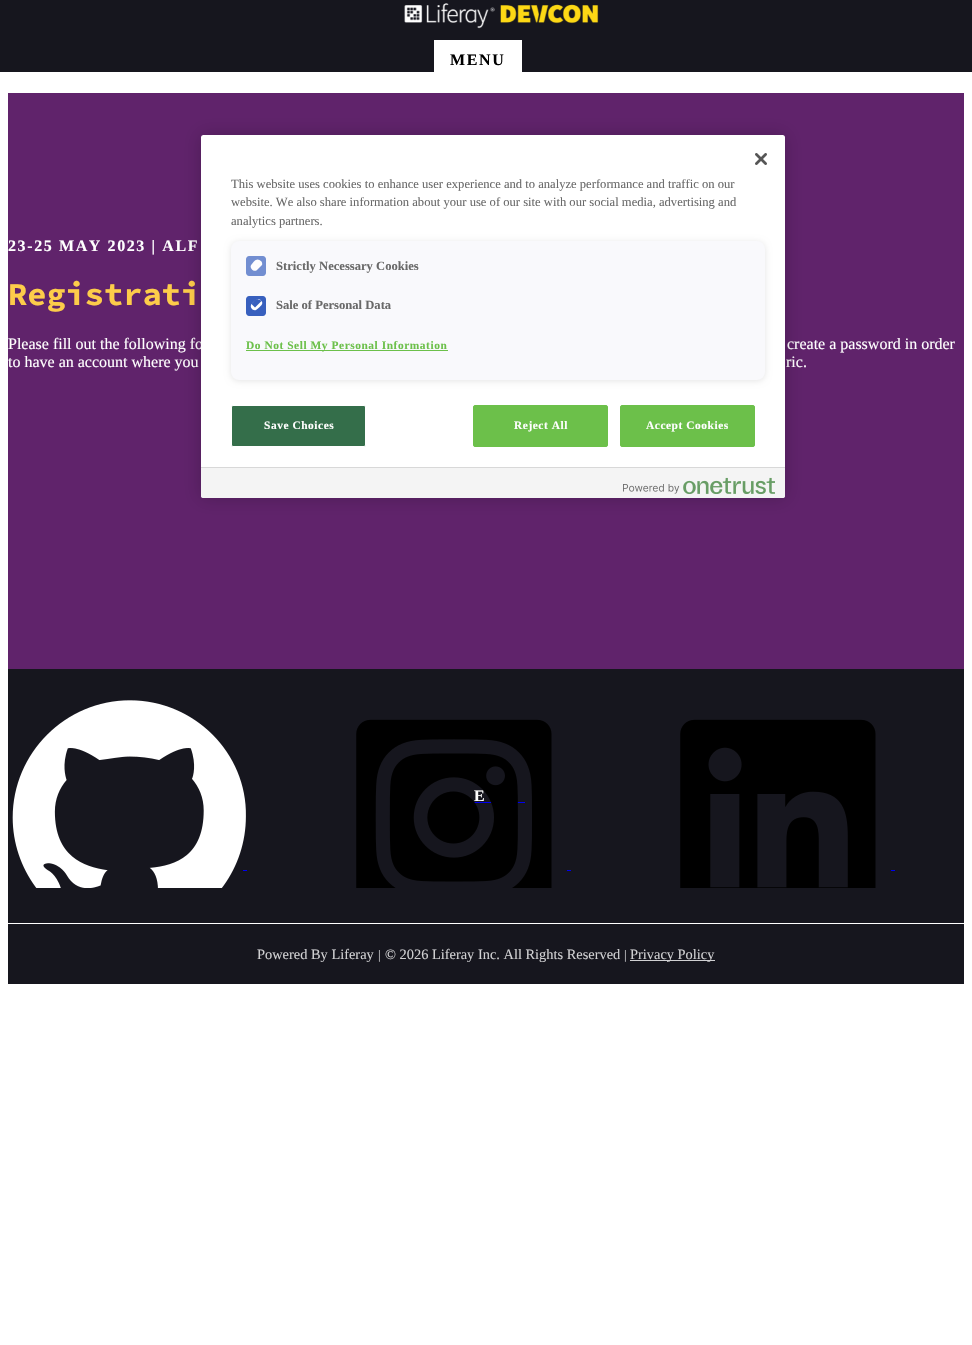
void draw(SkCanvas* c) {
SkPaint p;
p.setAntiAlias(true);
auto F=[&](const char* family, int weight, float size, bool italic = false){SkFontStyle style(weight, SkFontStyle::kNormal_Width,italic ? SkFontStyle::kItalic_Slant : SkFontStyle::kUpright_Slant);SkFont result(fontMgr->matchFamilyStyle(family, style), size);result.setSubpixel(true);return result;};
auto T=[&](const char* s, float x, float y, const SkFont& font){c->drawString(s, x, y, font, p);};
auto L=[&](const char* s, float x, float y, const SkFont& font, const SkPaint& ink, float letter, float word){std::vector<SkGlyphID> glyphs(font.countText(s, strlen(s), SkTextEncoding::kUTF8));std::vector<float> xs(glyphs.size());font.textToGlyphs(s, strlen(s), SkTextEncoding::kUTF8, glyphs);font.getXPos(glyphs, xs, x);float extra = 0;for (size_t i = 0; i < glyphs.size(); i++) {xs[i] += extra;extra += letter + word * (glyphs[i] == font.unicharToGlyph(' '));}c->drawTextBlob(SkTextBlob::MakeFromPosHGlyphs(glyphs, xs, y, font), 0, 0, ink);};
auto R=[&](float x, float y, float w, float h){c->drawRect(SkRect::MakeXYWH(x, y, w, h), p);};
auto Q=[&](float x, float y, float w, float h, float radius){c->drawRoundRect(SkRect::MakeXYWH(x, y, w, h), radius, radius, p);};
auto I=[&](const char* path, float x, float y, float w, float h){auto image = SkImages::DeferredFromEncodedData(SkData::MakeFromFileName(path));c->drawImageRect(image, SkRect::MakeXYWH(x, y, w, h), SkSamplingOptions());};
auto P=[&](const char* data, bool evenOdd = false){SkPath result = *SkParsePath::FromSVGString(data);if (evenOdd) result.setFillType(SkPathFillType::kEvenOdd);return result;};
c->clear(0xffffffff);
p.setColor(0xff60236b);
R(8,93,956,576);
p.setColor(0xff16161e);
R(0,0,972,72);
I("1.png",404,3,195,26);
p.setColor(0xffffffff);
R(434,40,88,32);
auto f1 = F("Liberation Serif",700,16);
p.setColor(0xff000000);
L("MENU",450,65,f1,p,1.6,0);
p.setColor(0xffffffff);
L("23-25 MAY 2023 | ALF",8,251,f1,p,1.6,0);
auto f2 = F("Source Code Pro",700,32);
p.setColor(0xfffdcc4a);
T("Registrati",8,305,f2);
auto f3 = F("Liberation Serif",400,16);
p.setColor(0xffffffff);
T("Please fill out the following fo",8,349,f3);
T("create a password in order",787,349,f3);
T("to have an account where you",8,367,f3);
T("ric.",786,367,f3);
p.setColor(0xff16161e);
R(8,669,956,315);
p.setColor(0xffffffff);
R(0,923,972,1);
p.setColor(0xff0000ee);
R(243,870,4,1);
I("2.png",12,700,234,188);
p.setColor(0xffffffff);
L("E",474,801,f1,p,1.6,0);
p.setColor(0xff0000ee);
R(474,802,51,1);
I("3.png",356,719,196,169);
I("4.png",680,719,196,169);
R(567,870,4,1);
R(891,870,4,1);
auto f4 = F("Liberation Serif",400,14.4);
p.setColor(0xffd0d0d2);
T("Powered By Liferay",257,959,f4);
auto f5 = F("Liberation Serif",400,13);
T("|",378,959,f5);
T("© 2026 Liferay Inc. All Rights Reserved",385,959,f4);
T("|",624,959,f5);
R(630,960,85,1);
T("Privacy Policy",630,959,f4);
p.setColor(0x33000000);
p.setMaskFilter(SkMaskFilter::MakeBlur(kNormal_SkBlurStyle, 9));
c->drawRoundRect(SkRect::MakeXYWH(201,135,584,363),2.5,2.5,p);
p.setMaskFilter(nullptr);
p.setColor(0xffffffff);
Q(201,135,584,363,2.5);
I("5.png",755,153,12,12);
auto f6 = F("Liberation Serif",400,12.6);
p.setColor(0xff696969);
T("This website uses cookies to enhance user experience and to analyze performance and traffic on our",231,188,f6);
T("website. We also share information about your use of our site with our social media, advertising and",231,206,f6);
T("analytics partners.",231,225,f6);
p.setColor(0x1a000000);
p.setMaskFilter(SkMaskFilter::MakeBlur(kNormal_SkBlurStyle, 3));
c->drawRoundRect(SkRect::MakeXYWH(231,242,534,139),8,8,p);
p.setMaskFilter(nullptr);
p.setColor(0xfff9f9fc);
Q(231,241,534,139,8);
p.setColor(0xff728ed1);
c->drawPath(P("M249 256h14c1.5 0 3 1.5 3 3v14c0 1.5-1.5 3-3 3h-14c-1.5 0-3-1.5-3-3v-14c0-1.5 1.5-3 3-3z"),p);
p.setColor(0xfffdfdfe);
c->drawPath(P("M251.5 264.5c2-2.5 4.5-6.5 8-4.5l2 1.5c.5 1 1 2.5 .5 3.5l-5 5c-3 3-8.5-2.5-5.5-5.5z"),p);
auto f7 = F("Liberation Serif",700,12.6);
p.setColor(0xff696969);
T("Strictly Necessary Cookies",276,270,f7);
p.setColor(0xff3860be);
c->drawPath(P("M249 296h14c1.5 0 3 1.5 3 3v14c0 1.5-1.5 3-3 3h-14c-1.5 0-3-1.5-3-3v-14c0-1.5 1.5-3 3-3z"),p);
p.setColor(0xffffffff);
c->drawPath(P("M251.5 304c3-2.5 6-8 10-3l-6.5 6.5zm8.5-4c-3-2-4.5 0-6.5 2c-1 1-2.5 2-2.5 3c-1 3 2 6 5 5l2-1.5c2-2 6-4.5 3.5-7.5z",true),p);
p.setColor(0xff696969);
T("Sale of Personal Data",276,309,f7);
p.setColor(0xff6cc04a);
R(246,350,202,1);
auto f8 = F("Liberation Serif",700,11.4);
L("Do Not Sell My Personal Information",246,349,f8,p,.55,0);
p.setColor(0xff346e4a);
c->drawRoundRect(SkRect::MakeXYWH(231.5,405.5,134,41),1.5,1.5,p);
p.setStroke(true);
p.setStrokeWidth(1);
p.setColor(0xffffffff);
c->drawRoundRect(SkRect::MakeXYWH(231.5,405.5,134,41),1.5,1.5,p);
p.setStroke(false);
L("Save Choices",264,429,f8,p,.55,0);
p.setColor(0xff6cc04a);
c->drawRoundRect(SkRect::MakeXYWH(473.5,405.5,134,41),1.5,1.5,p);
p.setStroke(true);
c->drawRoundRect(SkRect::MakeXYWH(473.5,405.5,134,41),1.5,1.5,p);
p.setStroke(false);
p.setColor(0xffffffff);
L("Reject All",514,429,f8,p,.55,0);
p.setColor(0xff6cc04a);
c->drawRoundRect(SkRect::MakeXYWH(620.5,405.5,134,41),1.5,1.5,p);
p.setStroke(true);
c->drawRoundRect(SkRect::MakeXYWH(620.5,405.5,134,41),1.5,1.5,p);
p.setStroke(false);
p.setColor(0xffffffff);
L("Accept Cookies",646,429,f8,p,.55,0);
p.setColor(0xfff4f4f4);
c->drawPath(P("M201 467h584v28.5c0 1.5-1 2.5-2.5 2.5h-579c-1.5 0-2.5-1-2.5-2.5z"),p);
p.setColor(0xffd8d8d8);
R(201,467,584,1);
I("6.png",623,477,152,17);
}
